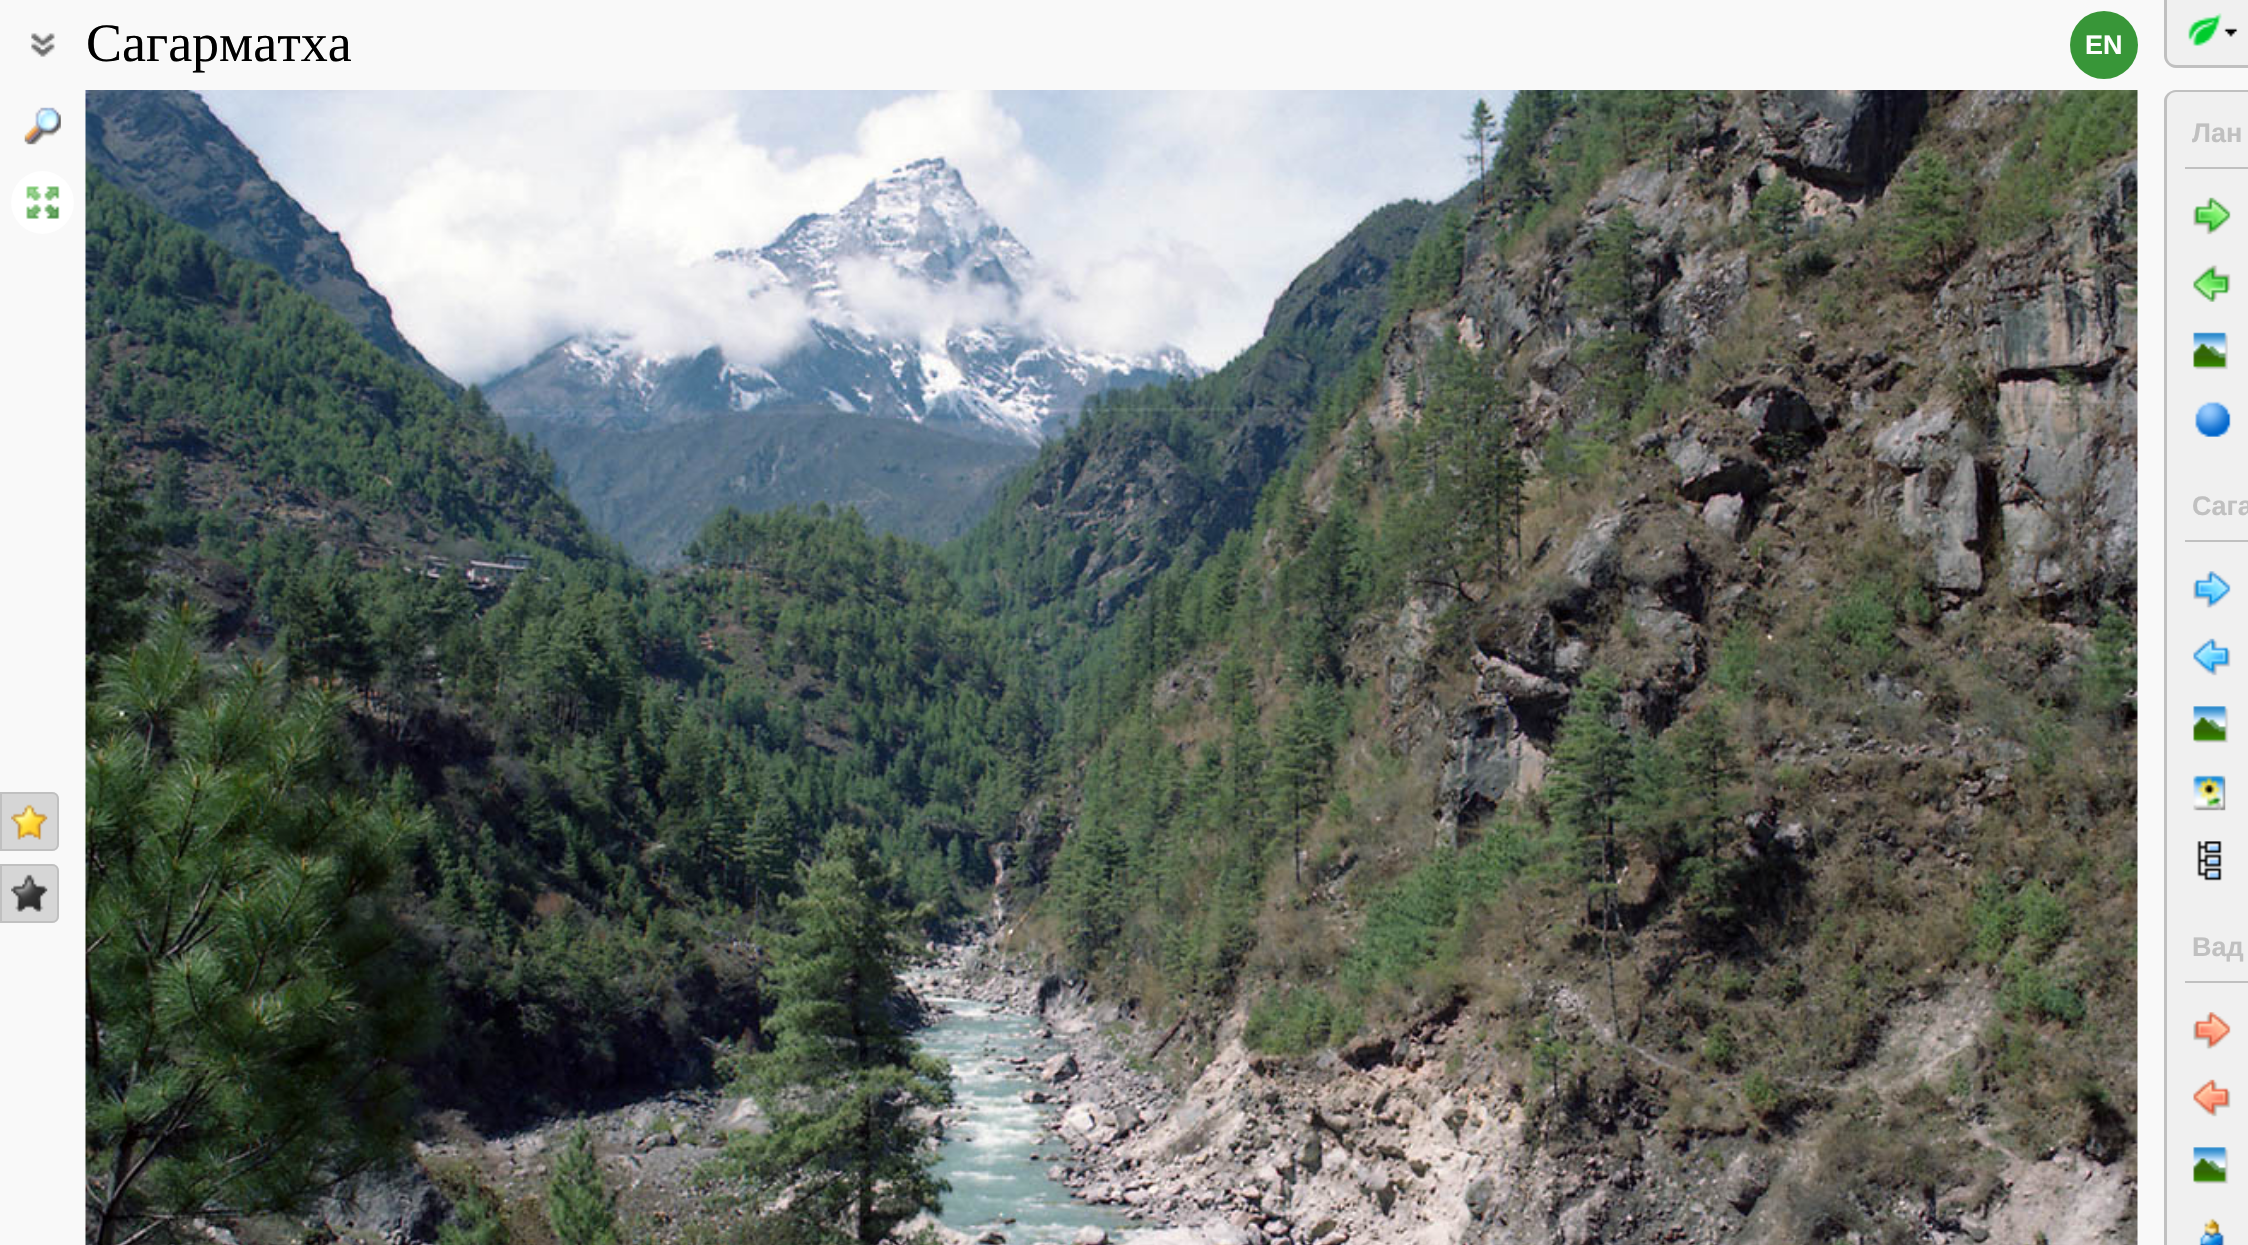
void draw(SkCanvas* c) {
SkPaint p;
p.setAntiAlias(true);
auto F=[&](const char* family, int weight, float size, bool italic = false){SkFontStyle style(weight, SkFontStyle::kNormal_Width,italic ? SkFontStyle::kItalic_Slant : SkFontStyle::kUpright_Slant);SkFont result(fontMgr->matchFamilyStyle(family, style), size);result.setSubpixel(true);return result;};
auto T=[&](const char* s, float x, float y, const SkFont& font){c->drawString(s, x, y, font, p);};
auto R=[&](float x, float y, float w, float h){c->drawRect(SkRect::MakeXYWH(x, y, w, h), p);};
auto I=[&](const char* path, float x, float y, float w, float h){auto image = SkImages::DeferredFromEncodedData(SkData::MakeFromFileName(path));c->drawImageRect(image, SkRect::MakeXYWH(x, y, w, h), SkSamplingOptions());};
auto P=[&](const char* data, bool evenOdd = false){SkPath result = *SkParsePath::FromSVGString(data);if (evenOdd) result.setFillType(SkPathFillType::kEvenOdd);return result;};
c->clear(0xfff9f9f9);
I("1.png",31,33,24,24);
auto f1 = F("Liberation Serif",400,54);
p.setColor(0xff000000);
T("Сагарматха",86,61,f1);
p.setColor(0xff389638);
c->drawCircle(2104,45,34,p);
auto f2 = F("Liberation Sans",700,27);
p.setColor(0xfffefefe);
T("EN",2085,54,f2);
I("2.png",24,107,37,38);
p.setColor(0xffffffff);
c->drawCircle(42.5,202.5,31.5,p);
I("3.png",26,186,34,33);
p.setColor(0xffd6d6d6);
c->drawPath(P("M0 792h52c4 0 7 3 7 7v45c0 4-3 7-7 7h-52z"),p);
I("4.png",11,804,37,36);
p.setStroke(true);
p.setStrokeWidth(2);
p.setColor(0xffc0c0c0);
c->drawPath(P("M1 793h51c3.5 0 6 2.5 6 6v45c0 3.5-2.5 6-6 6h-51z"),p);
p.setStroke(false);
p.setColor(0xffd6d6d6);
c->drawPath(P("M0 864h52c4 0 7 3 7 7v45c0 4-3 7-7 7h-52z"),p);
I("5.png",11,874,37,38);
p.setStroke(true);
p.setColor(0xffc0c0c0);
c->drawPath(P("M1 865h51c3.5 0 6 2.5 6 6v45c0 3.5-2.5 6-6 6h-51z"),p);
I("6.png",85,90,2053,1155);
p.setStroke(false);
p.setColor(0xfff0f0f0);
c->drawPath(P("M2165 0h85v68h-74c-6 0-11-5-11-11z"),p);
I("7.png",2188,13,34,33);
p.setColor(0xffc0c0c0);
c->drawPath(P("M2164 0h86v68h-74c-6 0-12-6-12-12zm3 0h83v65h-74c-5 0-9-4-9-9z",true),p);
I("8.png",2224,28,14,9);
p.setColor(0xfff0f0f0);
c->drawPath(P("M2176 90h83v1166h-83c-6 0-11-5-11-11v-1144c0-6 5-11 11-11z"),p);
p.setColor(0xffc0c0c0);
c->drawPath(P("M2176 90h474v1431h-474c-6 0-12-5-12-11v-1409c0-6 6-11 12-11zm0 2h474v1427h-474c-5 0-9-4-9-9v-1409c0-5 4-9 9-9z",true),p);
R(2185,167,63,2);
T("Лан",2192,142,f2);
I("9.png",2193,197,38,38);
I("10.png",2193,264,38,38);
I("11.png",2193,332,35,38);
I("12.png",2195,401,36,36);
R(2185,540,63,2);
T("Сага",2192,515,f2);
I("13.png",2193,571,38,38);
I("14.png",2193,638,38,38);
I("15.png",2193,706,36,37);
I("16.png",2193,775,33,36);
I("17.png",2197,841,25,40);
R(2185,981,63,2);
T("Вад",2192,956,f2);
I("18.png",2193,1012,38,38);
I("19.png",2193,1079,38,38);
I("15.png",2193,1147,36,37);
I("20.png",2199,1218,26,27);
}
